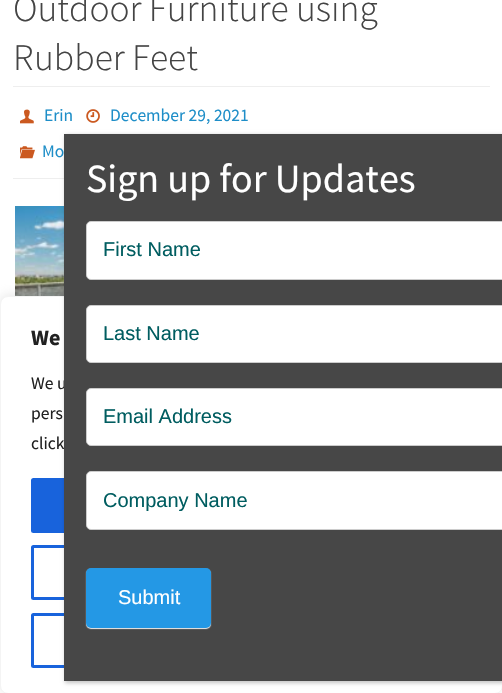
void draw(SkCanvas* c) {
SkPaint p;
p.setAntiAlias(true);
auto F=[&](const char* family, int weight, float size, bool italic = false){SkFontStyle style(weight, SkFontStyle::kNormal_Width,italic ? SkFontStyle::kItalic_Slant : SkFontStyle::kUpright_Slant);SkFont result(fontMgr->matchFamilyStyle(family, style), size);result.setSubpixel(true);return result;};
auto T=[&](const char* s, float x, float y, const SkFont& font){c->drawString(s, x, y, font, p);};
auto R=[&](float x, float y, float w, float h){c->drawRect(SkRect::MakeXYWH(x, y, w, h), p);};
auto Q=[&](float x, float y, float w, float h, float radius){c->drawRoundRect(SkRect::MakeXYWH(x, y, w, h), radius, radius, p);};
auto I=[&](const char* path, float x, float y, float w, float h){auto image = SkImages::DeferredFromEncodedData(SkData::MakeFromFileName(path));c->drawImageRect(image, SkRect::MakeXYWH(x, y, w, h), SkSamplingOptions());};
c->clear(0xffffffff);
auto f1 = F("Source Sans Pro",300,37.5);
p.setColor(0xff444444);
T("Outdoor Furniture using",13,21,f1);
T("Rubber Feet",13,70,f1);
p.setColor(0xffeeeeee);
R(13,86,477,1);
R(13,178,51,1);
I("1.png",20,109,14,15);
auto f2 = F("Source Sans Pro",400,17.5);
p.setColor(0xff1e8ec8);
T("Erin",44,121,f2);
I("2.png",86,109,14,14);
T("December 29, 2021",110,121,f2);
I("3.png",20,146,15,13);
T("Mo",42,157,f2);
I("4.png",15,206,49,90);
p.setColor(0x4dacabab);
p.setMaskFilter(SkMaskFilter::MakeBlur(kNormal_SkBlurStyle, 6));
c->drawRoundRect(SkRect::MakeXYWH(0,295,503,398),8,8,p);
p.setMaskFilter(nullptr);
p.setColor(0xffffffff);
c->drawRoundRect(SkRect::MakeXYWH(.5,296.5,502,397),7.5,7.5,p);
p.setStroke(true);
p.setStrokeWidth(1);
p.setColor(0xfff4f4f4);
c->drawRoundRect(SkRect::MakeXYWH(.5,296.5,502,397),7.5,7.5,p);
auto f3 = F("Source Sans Pro",700,22);
p.setStroke(false);
p.setColor(0xff212121);
T("We",31,345,f3);
T("We u",31,389,f2);
T("pers",31,419,f2);
T("click",31,449,f2);
p.setColor(0xff1863dc);
c->drawRoundRect(SkRect::MakeXYWH(32.5,479.5,437,52),1,1,p);
p.setStroke(true);
p.setStrokeWidth(3);
c->drawRoundRect(SkRect::MakeXYWH(32.5,479.5,437,52),1,1,p);
c->drawRoundRect(SkRect::MakeXYWH(32.5,546.5,437,52),1,1,p);
c->drawRoundRect(SkRect::MakeXYWH(32.5,614.5,437,52),1,1,p);
p.setStroke(false);
p.setColor(0x3b020202);
p.setMaskFilter(SkMaskFilter::MakeBlur(kNormal_SkBlurStyle, 2));
c->drawRect(SkRect::MakeXYWH(65,135,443,548),p);
p.setMaskFilter(nullptr);
p.setColor(0xff474747);
R(64,134,438,547);
auto f4 = F("Source Sans Pro",400,40);
p.setColor(0xffffffff);
T("Sign up for Updates",86,192,f4);
c->drawRoundRect(SkRect::MakeXYWH(86.5,221.5,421,58),4.5,4.5,p);
p.setStroke(true);
p.setStrokeWidth(1);
p.setColor(0xffcccccc);
c->drawRoundRect(SkRect::MakeXYWH(86.5,221.5,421,58),4.5,4.5,p);
auto f5 = F("Liberation Sans",400,20);
p.setStroke(false);
p.setColor(0xff005d60);
T("First Name",103,256,f5);
p.setColor(0xffffffff);
c->drawRoundRect(SkRect::MakeXYWH(86.5,305.5,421,57),4.5,4.5,p);
p.setStroke(true);
p.setColor(0xffcccccc);
c->drawRoundRect(SkRect::MakeXYWH(86.5,305.5,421,57),4.5,4.5,p);
p.setStroke(false);
p.setColor(0xff005d60);
T("Last Name",103,340,f5);
p.setColor(0xffffffff);
c->drawRoundRect(SkRect::MakeXYWH(86.5,388.5,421,57),4.5,4.5,p);
p.setStroke(true);
p.setColor(0xffcccccc);
c->drawRoundRect(SkRect::MakeXYWH(86.5,388.5,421,57),4.5,4.5,p);
p.setStroke(false);
p.setColor(0xff005d60);
T("Email Address",103,423,f5);
p.setColor(0xffffffff);
c->drawRoundRect(SkRect::MakeXYWH(86.5,471.5,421,58),4.5,4.5,p);
p.setStroke(true);
p.setColor(0xffcccccc);
c->drawRoundRect(SkRect::MakeXYWH(86.5,471.5,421,58),4.5,4.5,p);
c->save();
c->clipRect(SkRect::MakeXYWH(103,489,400,22));
p.setStroke(false);
p.setColor(0xff005d60);
T("Company Name",103,507,f5);
c->restore();
p.setColor(0xffeeeeee);
p.setMaskFilter(SkMaskFilter::MakeBlur(kNormal_SkBlurStyle, .5));
c->drawRoundRect(SkRect::MakeXYWH(86,569,125,60),5,5,p);
p.setMaskFilter(nullptr);
p.setColor(0xff2498e5);
Q(86,568,125,60,5);
p.setColor(0xffffffff);
T("Submit",118,604,f5);
}
